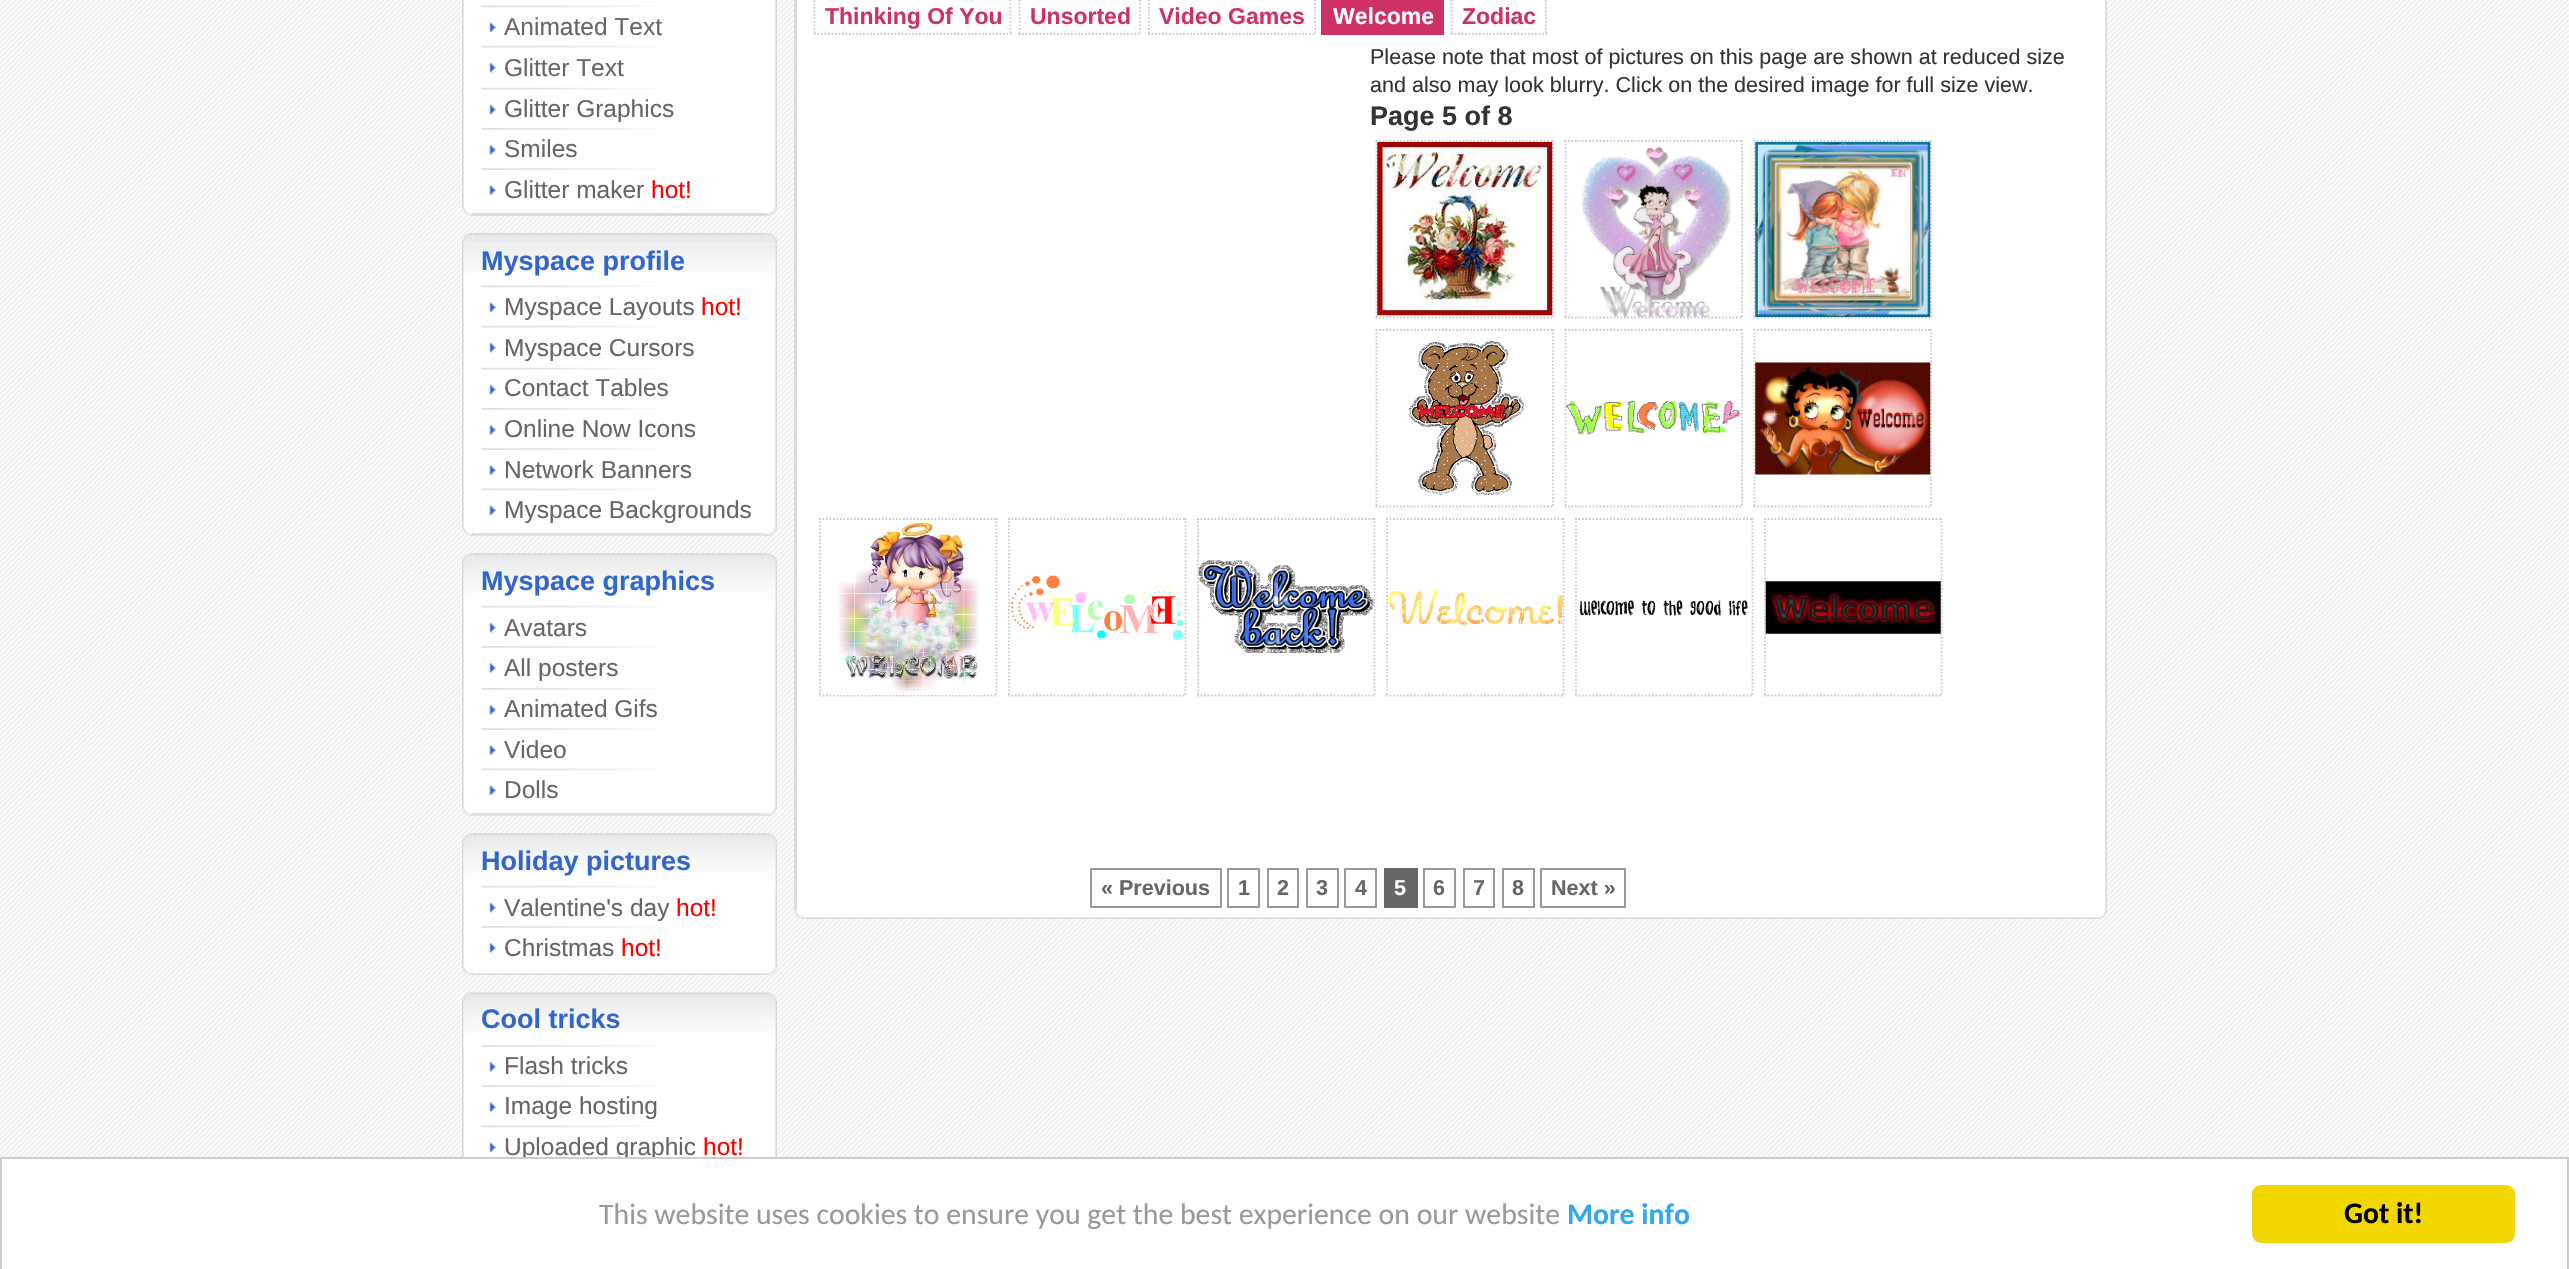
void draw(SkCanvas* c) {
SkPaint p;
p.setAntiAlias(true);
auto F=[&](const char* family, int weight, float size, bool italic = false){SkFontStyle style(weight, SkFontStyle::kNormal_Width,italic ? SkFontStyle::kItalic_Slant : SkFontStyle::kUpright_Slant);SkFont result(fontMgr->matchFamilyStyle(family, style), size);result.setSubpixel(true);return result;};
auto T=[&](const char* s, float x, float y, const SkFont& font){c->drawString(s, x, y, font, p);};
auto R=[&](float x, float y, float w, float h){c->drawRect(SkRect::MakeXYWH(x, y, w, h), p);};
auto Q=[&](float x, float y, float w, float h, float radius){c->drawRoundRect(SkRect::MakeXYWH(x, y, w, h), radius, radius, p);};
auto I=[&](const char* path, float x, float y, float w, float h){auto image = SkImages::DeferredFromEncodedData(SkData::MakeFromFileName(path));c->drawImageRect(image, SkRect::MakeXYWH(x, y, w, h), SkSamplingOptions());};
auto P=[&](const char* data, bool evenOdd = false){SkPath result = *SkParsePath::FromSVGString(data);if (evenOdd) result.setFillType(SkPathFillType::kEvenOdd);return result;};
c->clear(0xffffffff);
I("1.png",0,0,2569,1157);
p.setColor(0xffffffff);
R(463,0,313,205);
I("2.png",462,0,2,205);
I("3.png",481,5,175,3);
I("4.png",489,22,7,11);
auto f1 = F("Liberation Sans",400,24.5);
p.setColor(0xff666666);
T("Animated Text",504,35,f1);
I("5.png",481,45,175,3);
I("6.png",489,62,7,11);
T("Glitter Text",504,76,f1);
I("5.png",481,87,175,3);
I("6.png",489,104,7,11);
T("Glitter Graphics",504,117,f1);
I("7.png",481,128,175,2);
I("8.png",489,145,7,10);
T("Smiles",504,157,f1);
I("9.png",481,168,175,2);
I("10.png",489,185,7,10);
T("Glitter maker",504,198,f1);
p.setColor(0xffff0000);
T("hot!",651,198,f1);
I("11.png",775,0,2,205);
I("12.png",462,205,11,11);
p.setColor(0xffffffff);
R(473,205,294,10);
p.setColor(0xedd7d8da);
R(472,213,295,3);
I("13.png",766,205,11,11);
I("14.png",462,233,11,10);
I("15.png",472,233,295,10);
I("16.png",766,233,11,10);
p.setColor(0xffffffff);
R(462,243,315,282);
I("17.png",462,243,2,283);
I("19.png",472,243,295,29);
I("18.png",463,243,10,49);
auto f2 = F("Liberation Sans",700,27);
p.setColor(0xff3366cc);
T("Myspace profile",481,270,f2);
I("3.png",481,285,175,3);
I("4.png",489,302,7,11);
p.setColor(0xff666666);
T("Myspace Layouts",504,315,f1);
p.setColor(0xffff0000);
T("hot!",701,315,f1);
I("5.png",481,325,175,3);
I("6.png",489,342,7,11);
p.setColor(0xff666666);
T("Myspace Cursors",504,356,f1);
I("5.png",481,367,175,3);
I("6.png",489,384,7,11);
T("Contact Tables",504,396,f1);
I("7.png",481,408,175,2);
I("8.png",489,425,7,10);
T("Online Now Icons",504,437,f1);
I("9.png",481,448,175,2);
I("10.png",489,465,7,10);
T("Network Banners",504,478,f1);
I("3.png",481,488,175,3);
I("4.png",489,505,7,11);
T("Myspace Backgrounds",504,518,f1);
I("20.png",775,243,2,283);
I("21.png",766,243,10,49);
I("22.png",462,525,11,11);
p.setColor(0xffffffff);
R(473,525,294,11);
p.setColor(0xc7d7d9db);
R(472,533,295,3);
I("23.png",766,525,11,11);
I("24.png",462,553,11,11);
I("25.png",472,553,295,11);
I("26.png",766,553,11,11);
p.setColor(0xffffffff);
R(463,564,313,241);
I("27.png",462,564,2,242);
I("29.png",472,564,295,29);
I("28.png",463,564,10,49);
p.setColor(0xff3366cc);
T("Myspace graphics",481,590,f2);
I("5.png",481,605,175,3);
I("6.png",489,622,7,11);
p.setColor(0xff666666);
T("Avatars",504,636,f1);
I("7.png",481,646,175,2);
I("8.png",489,663,7,10);
T("All posters",504,676,f1);
I("7.png",481,688,175,2);
I("8.png",489,705,7,10);
T("Animated Gifs",504,717,f1);
I("9.png",481,728,175,2);
I("10.png",489,745,7,10);
T("Video",504,758,f1);
I("3.png",481,768,175,3);
I("4.png",489,785,7,11);
T("Dolls",504,798,f1);
I("30.png",775,564,2,242);
I("31.png",766,564,10,49);
I("32.png",462,805,11,11);
p.setColor(0xffffffff);
R(473,805,294,11);
p.setColor(0xc7d7d9db);
R(472,813,295,3);
I("33.png",766,805,11,11);
I("34.png",462,833,11,11);
I("35.png",472,833,295,11);
I("36.png",766,833,11,11);
p.setColor(0xffffffff);
R(463,844,313,120);
I("37.png",462,844,2,121);
I("29.png",472,844,295,29);
I("28.png",463,844,10,49);
p.setColor(0xff3366cc);
T("Holiday pictures",481,870,f2);
I("5.png",481,885,175,3);
I("6.png",489,902,7,11);
p.setColor(0xff666666);
T("Valentine's day",504,916,f1);
p.setColor(0xffff0000);
T("hot!",676,916,f1);
I("7.png",481,926,175,2);
I("8.png",489,943,7,10);
p.setColor(0xff666666);
T("Christmas",504,956,f1);
p.setColor(0xffff0000);
T("hot!",621,956,f1);
I("38.png",775,844,2,121);
I("31.png",766,844,10,49);
I("39.png",462,964,11,11);
p.setColor(0xffffffff);
R(473,964,294,11);
I("40.png",472,973,295,2);
I("41.png",766,964,11,11);
I("42.png",462,992,11,11);
I("43.png",472,992,295,11);
I("44.png",766,992,11,11);
R(463,1003,313,154);
I("45.png",462,1003,2,154);
I("47.png",472,1003,295,29);
I("46.png",463,1003,10,49);
p.setColor(0xff3366cc);
T("Cool tricks",481,1028,f2);
I("7.png",481,1045,175,2);
I("8.png",489,1062,7,10);
p.setColor(0xff666666);
T("Flash tricks",504,1074,f1);
I("9.png",481,1085,175,2);
I("10.png",489,1102,7,10);
T("Image hosting",504,1114,f1);
I("3.png",481,1125,175,3);
I("4.png",489,1142,7,11);
T("Uploaded graphic",504,1155,f1);
p.setColor(0xffff0000);
T("hot!",703,1155,f1);
I("48.png",775,1003,2,154);
I("49.png",766,1003,10,49);
p.setColor(0xffffffff);
R(795,0,1311,908);
p.setColor(0xedd7d8da);
R(794,0,3,909);
p.setStroke(true);
p.setStrokeWidth(1.8);
p.setColor(0xffcccccc);
p.setPathEffect(SkDashPathEffect::Make({{1.75f,1.75f}}, 0));
c->drawPath(P("M1010.5-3.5v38.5"),p);
p.setPathEffect(nullptr);
p.setPathEffect(SkDashPathEffect::Make({{1.75f,1.75f}}, 0));
c->drawPath(P("M814 34h197.5"),p);
p.setPathEffect(nullptr);
p.setPathEffect(SkDashPathEffect::Make({{1.75f,1.75f}}, 0));
c->drawPath(P("M814.5-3.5v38.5"),p);
p.setPathEffect(nullptr);
auto f3 = F("Liberation Sans",700,23);
p.setStroke(false);
p.setColor(0xffcf3165);
T("Thinking Of You",825,24,f3);
p.setStroke(true);
p.setColor(0xffcccccc);
p.setPathEffect(SkDashPathEffect::Make({{1.75f,1.75f}}, 0));
c->drawPath(P("M1140-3.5v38.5"),p);
p.setPathEffect(nullptr);
p.setPathEffect(SkDashPathEffect::Make({{1.75f,1.75f}}, 0));
c->drawPath(P("M1018.5 34h122.5"),p);
p.setPathEffect(nullptr);
p.setPathEffect(SkDashPathEffect::Make({{1.75f,1.75f}}, 0));
c->drawPath(P("M1019.5-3.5v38.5"),p);
p.setPathEffect(nullptr);
p.setStroke(false);
p.setColor(0xffcf3165);
T("Unsorted",1030,24,f3);
p.setStroke(true);
p.setColor(0xffcccccc);
p.setPathEffect(SkDashPathEffect::Make({{1.75f,1.75f}}, 0));
c->drawPath(P("M1315-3.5v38.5"),p);
p.setPathEffect(nullptr);
p.setPathEffect(SkDashPathEffect::Make({{1.75f,1.75f}}, 0));
c->drawPath(P("M1148 34h168"),p);
p.setPathEffect(nullptr);
p.setPathEffect(SkDashPathEffect::Make({{1.75f,1.75f}}, 0));
c->drawPath(P("M1149-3.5v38.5"),p);
p.setPathEffect(nullptr);
p.setStroke(false);
p.setColor(0xffcf3165);
T("Video Games",1159,24,f3);
R(1321,0,123,35);
p.setColor(0xffffffff);
T("Welcome",1333,24,f3);
p.setStroke(true);
p.setColor(0xffcccccc);
p.setPathEffect(SkDashPathEffect::Make({{1.75f,1.75f}}, 0));
c->drawPath(P("M1546-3.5v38.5"),p);
p.setPathEffect(nullptr);
p.setPathEffect(SkDashPathEffect::Make({{1.75f,1.75f}}, 0));
c->drawPath(P("M1451 34h96"),p);
p.setPathEffect(nullptr);
p.setPathEffect(SkDashPathEffect::Make({{1.75f,1.75f}}, 0));
c->drawPath(P("M1451.5-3.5v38.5"),p);
p.setPathEffect(nullptr);
p.setStroke(false);
p.setColor(0xffcf3165);
T("Zodiac",1462,24,f3);
auto f4 = F("Liberation Sans",400,21.55);
p.setColor(0xff333333);
T("Please note that most of pictures on this page are shown at reduced size",1370,64,f4);
T("and also may look blurry. Click on the desired image for full size view.",1370,92,f4);
T("Page 5 of 8",1370,125,f2);
p.setStroke(true);
p.setColor(0xffcccccc);
p.setPathEffect(SkDashPathEffect::Make({{1.75f,1.75f}}, 0));
c->drawPath(P("M1375.5 141h178.5"),p);
p.setPathEffect(nullptr);
p.setPathEffect(SkDashPathEffect::Make({{1.75f,1.75f}}, 0));
c->drawPath(P("M1553 140v178.5"),p);
p.setPathEffect(nullptr);
p.setPathEffect(SkDashPathEffect::Make({{1.75f,1.75f}}, 0));
c->drawPath(P("M1375.5 317.5h178.5"),p);
p.setPathEffect(nullptr);
p.setPathEffect(SkDashPathEffect::Make({{1.75f,1.75f}}, 0));
c->drawPath(P("M1376.5 140v178.5"),p);
p.setPathEffect(nullptr);
I("50.png",1377,142,176,174);
p.setPathEffect(SkDashPathEffect::Make({{1.75f,1.75f}}, 0));
c->drawPath(P("M1564.5 141h178.5"),p);
p.setPathEffect(nullptr);
p.setPathEffect(SkDashPathEffect::Make({{1.75f,1.75f}}, 0));
c->drawPath(P("M1742 140v178.5"),p);
p.setPathEffect(nullptr);
p.setPathEffect(SkDashPathEffect::Make({{1.75f,1.75f}}, 0));
c->drawPath(P("M1564.5 317.5h178.5"),p);
p.setPathEffect(nullptr);
p.setPathEffect(SkDashPathEffect::Make({{1.75f,1.75f}}, 0));
c->drawPath(P("M1565.5 140v178.5"),p);
p.setPathEffect(nullptr);
I("51.png",1581,142,152,175);
p.setPathEffect(SkDashPathEffect::Make({{1.75f,1.75f}}, 0));
c->drawPath(P("M1753.5 141h178.5"),p);
p.setPathEffect(nullptr);
p.setPathEffect(SkDashPathEffect::Make({{1.75f,1.75f}}, 0));
c->drawPath(P("M1931 140v178.5"),p);
p.setPathEffect(nullptr);
p.setPathEffect(SkDashPathEffect::Make({{1.75f,1.75f}}, 0));
c->drawPath(P("M1753.5 317.5h178.5"),p);
p.setPathEffect(nullptr);
p.setPathEffect(SkDashPathEffect::Make({{1.75f,1.75f}}, 0));
c->drawPath(P("M1754.5 140v178.5"),p);
p.setPathEffect(nullptr);
I("52.png",1755,142,176,175);
p.setPathEffect(SkDashPathEffect::Make({{1.75f,1.75f}}, 0));
c->drawPath(P("M1375.5 330h178.5"),p);
p.setPathEffect(nullptr);
p.setPathEffect(SkDashPathEffect::Make({{1.75f,1.75f}}, 0));
c->drawPath(P("M1553 329v178.5"),p);
p.setPathEffect(nullptr);
p.setPathEffect(SkDashPathEffect::Make({{1.75f,1.75f}}, 0));
c->drawPath(P("M1375.5 506.5h178.5"),p);
p.setPathEffect(nullptr);
p.setPathEffect(SkDashPathEffect::Make({{1.75f,1.75f}}, 0));
c->drawPath(P("M1376.5 329v178.5"),p);
p.setPathEffect(nullptr);
I("53.png",1408,341,116,155);
p.setPathEffect(SkDashPathEffect::Make({{1.75f,1.75f}}, 0));
c->drawPath(P("M1564.5 330h178.5"),p);
p.setPathEffect(nullptr);
p.setPathEffect(SkDashPathEffect::Make({{1.75f,1.75f}}, 0));
c->drawPath(P("M1742 329v178.5"),p);
p.setPathEffect(nullptr);
p.setPathEffect(SkDashPathEffect::Make({{1.75f,1.75f}}, 0));
c->drawPath(P("M1564.5 506.5h178.5"),p);
p.setPathEffect(nullptr);
p.setPathEffect(SkDashPathEffect::Make({{1.75f,1.75f}}, 0));
c->drawPath(P("M1565.5 329v178.5"),p);
p.setPathEffect(nullptr);
I("54.png",1566,401,175,34);
p.setPathEffect(SkDashPathEffect::Make({{1.75f,1.75f}}, 0));
c->drawPath(P("M1753.5 330h178.5"),p);
p.setPathEffect(nullptr);
p.setPathEffect(SkDashPathEffect::Make({{1.75f,1.75f}}, 0));
c->drawPath(P("M1931 329v178.5"),p);
p.setPathEffect(nullptr);
p.setPathEffect(SkDashPathEffect::Make({{1.75f,1.75f}}, 0));
c->drawPath(P("M1753.5 506.5h178.5"),p);
p.setPathEffect(nullptr);
p.setPathEffect(SkDashPathEffect::Make({{1.75f,1.75f}}, 0));
c->drawPath(P("M1754.5 329v178.5"),p);
p.setPathEffect(nullptr);
I("55.png",1755,362,176,113);
p.setPathEffect(SkDashPathEffect::Make({{1.75f,1.75f}}, 0));
c->drawPath(P("M819 519h178.5"),p);
p.setPathEffect(nullptr);
p.setPathEffect(SkDashPathEffect::Make({{1.75f,1.75f}}, 0));
c->drawPath(P("M996.5 518v178.5"),p);
p.setPathEffect(nullptr);
p.setPathEffect(SkDashPathEffect::Make({{1.75f,1.75f}}, 0));
c->drawPath(P("M819 695.5h178.5"),p);
p.setPathEffect(nullptr);
p.setPathEffect(SkDashPathEffect::Make({{1.75f,1.75f}}, 0));
c->drawPath(P("M820 518v178.5"),p);
p.setPathEffect(nullptr);
I("56.png",833,520,151,175);
p.setPathEffect(SkDashPathEffect::Make({{1.75f,1.75f}}, 0));
c->drawPath(P("M1008 519h178.5"),p);
p.setPathEffect(nullptr);
p.setPathEffect(SkDashPathEffect::Make({{1.75f,1.75f}}, 0));
c->drawPath(P("M1185.5 518v178.5"),p);
p.setPathEffect(nullptr);
p.setPathEffect(SkDashPathEffect::Make({{1.75f,1.75f}}, 0));
c->drawPath(P("M1008 695.5h178.5"),p);
p.setPathEffect(nullptr);
p.setPathEffect(SkDashPathEffect::Make({{1.75f,1.75f}}, 0));
c->drawPath(P("M1009 518v178.5"),p);
p.setPathEffect(nullptr);
I("57.png",1011,575,173,65);
p.setPathEffect(SkDashPathEffect::Make({{1.75f,1.75f}}, 0));
c->drawPath(P("M1197 519h178.5"),p);
p.setPathEffect(nullptr);
p.setPathEffect(SkDashPathEffect::Make({{1.75f,1.75f}}, 0));
c->drawPath(P("M1374.5 518v178.5"),p);
p.setPathEffect(nullptr);
p.setPathEffect(SkDashPathEffect::Make({{1.75f,1.75f}}, 0));
c->drawPath(P("M1197 695.5h178.5"),p);
p.setPathEffect(nullptr);
p.setPathEffect(SkDashPathEffect::Make({{1.75f,1.75f}}, 0));
c->drawPath(P("M1198 518v178.5"),p);
p.setPathEffect(nullptr);
I("58.png",1198,560,176,93);
p.setPathEffect(SkDashPathEffect::Make({{1.75f,1.75f}}, 0));
c->drawPath(P("M1386 519h178.5"),p);
p.setPathEffect(nullptr);
p.setPathEffect(SkDashPathEffect::Make({{1.75f,1.75f}}, 0));
c->drawPath(P("M1563.5 518v178.5"),p);
p.setPathEffect(nullptr);
p.setPathEffect(SkDashPathEffect::Make({{1.75f,1.75f}}, 0));
c->drawPath(P("M1386 695.5h178.5"),p);
p.setPathEffect(nullptr);
p.setPathEffect(SkDashPathEffect::Make({{1.75f,1.75f}}, 0));
c->drawPath(P("M1387 518v178.5"),p);
p.setPathEffect(nullptr);
I("59.png",1387,590,176,35);
p.setPathEffect(SkDashPathEffect::Make({{1.75f,1.75f}}, 0));
c->drawPath(P("M1575 519h178.5"),p);
p.setPathEffect(nullptr);
p.setPathEffect(SkDashPathEffect::Make({{1.75f,1.75f}}, 0));
c->drawPath(P("M1752.5 518v178.5"),p);
p.setPathEffect(nullptr);
p.setPathEffect(SkDashPathEffect::Make({{1.75f,1.75f}}, 0));
c->drawPath(P("M1575 695.5h178.5"),p);
p.setPathEffect(nullptr);
p.setPathEffect(SkDashPathEffect::Make({{1.75f,1.75f}}, 0));
c->drawPath(P("M1576 518v178.5"),p);
p.setPathEffect(nullptr);
I("60.png",1576,598,176,20);
p.setPathEffect(SkDashPathEffect::Make({{1.75f,1.75f}}, 0));
c->drawPath(P("M1764 519h178.5"),p);
p.setPathEffect(nullptr);
p.setPathEffect(SkDashPathEffect::Make({{1.75f,1.75f}}, 0));
c->drawPath(P("M1941.5 518v178.5"),p);
p.setPathEffect(nullptr);
p.setPathEffect(SkDashPathEffect::Make({{1.75f,1.75f}}, 0));
c->drawPath(P("M1764 695.5h178.5"),p);
p.setPathEffect(nullptr);
p.setPathEffect(SkDashPathEffect::Make({{1.75f,1.75f}}, 0));
c->drawPath(P("M1765 518v178.5"),p);
p.setPathEffect(nullptr);
I("61.png",1765,581,176,53);
p.setStrokeWidth(2);
p.setColor(0xff999999);
c->drawRect(SkRect::MakeXYWH(1091,869,130,38),p);
auto f5 = F("Liberation Sans",700,21.55);
p.setStroke(false);
p.setColor(0xff666666);
T("« Previous",1101,895,f5);
p.setStroke(true);
p.setColor(0xff999999);
c->drawRect(SkRect::MakeXYWH(1228,869,31,38),p);
p.setStroke(false);
p.setColor(0xff666666);
T("1",1238,895,f5);
p.setStroke(true);
p.setColor(0xff999999);
c->drawRect(SkRect::MakeXYWH(1268,869,30,38),p);
p.setStroke(false);
p.setColor(0xff666666);
T("2",1277,895,f5);
p.setStroke(true);
p.setColor(0xff999999);
c->drawRect(SkRect::MakeXYWH(1307,869,31,38),p);
p.setStroke(false);
p.setColor(0xff666666);
T("3",1316,895,f5);
p.setStroke(true);
p.setColor(0xff999999);
c->drawRect(SkRect::MakeXYWH(1345,869,31,38),p);
p.setStroke(false);
p.setColor(0xff666666);
T("4",1355,895,f5);
R(1384,868,34,40);
p.setColor(0xffffffff);
T("5",1394,895,f5);
p.setStroke(true);
p.setColor(0xff999999);
c->drawRect(SkRect::MakeXYWH(1424,869,31,38),p);
p.setStroke(false);
p.setColor(0xff666666);
T("6",1433,895,f5);
p.setStroke(true);
p.setColor(0xff999999);
c->drawRect(SkRect::MakeXYWH(1464,869,30,38),p);
p.setStroke(false);
p.setColor(0xff666666);
T("7",1473,895,f5);
p.setStroke(true);
p.setColor(0xff999999);
c->drawRect(SkRect::MakeXYWH(1503,869,31,38),p);
p.setStroke(false);
p.setColor(0xff666666);
T("8",1512,895,f5);
p.setStroke(true);
p.setColor(0xff999999);
c->drawRect(SkRect::MakeXYWH(1541,869,84,38),p);
p.setStroke(false);
p.setColor(0xff666666);
T("Next »",1551,895,f5);
I("62.png",2105,0,2,909);
I("63.png",794,908,11,11);
p.setColor(0xffffffff);
R(805,908,1292,11);
I("64.png",805,917,1292,2);
I("65.png",2096,908,11,11);
R(523,1159,132,2);
p.setStroke(true);
p.setColor(0xffcccccc);
c->drawRect(SkRect::MakeXYWH(1,1158,2567,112),p);
auto f6 = F("Carlito",400,29.75);
p.setStroke(false);
p.setColor(0xff999999);
T("This website uses cookies to ensure you get the best experience on our website",599,1224,f6);
auto f7 = F("Carlito",700,29.75);
p.setColor(0xff31a8f0);
T("More info",1567,1224,f7);
p.setColor(0xfff1d600);
Q(2252,1185,263,58,9);
p.setColor(0xff000000);
T("Got it!",2344,1223,f7);
}
